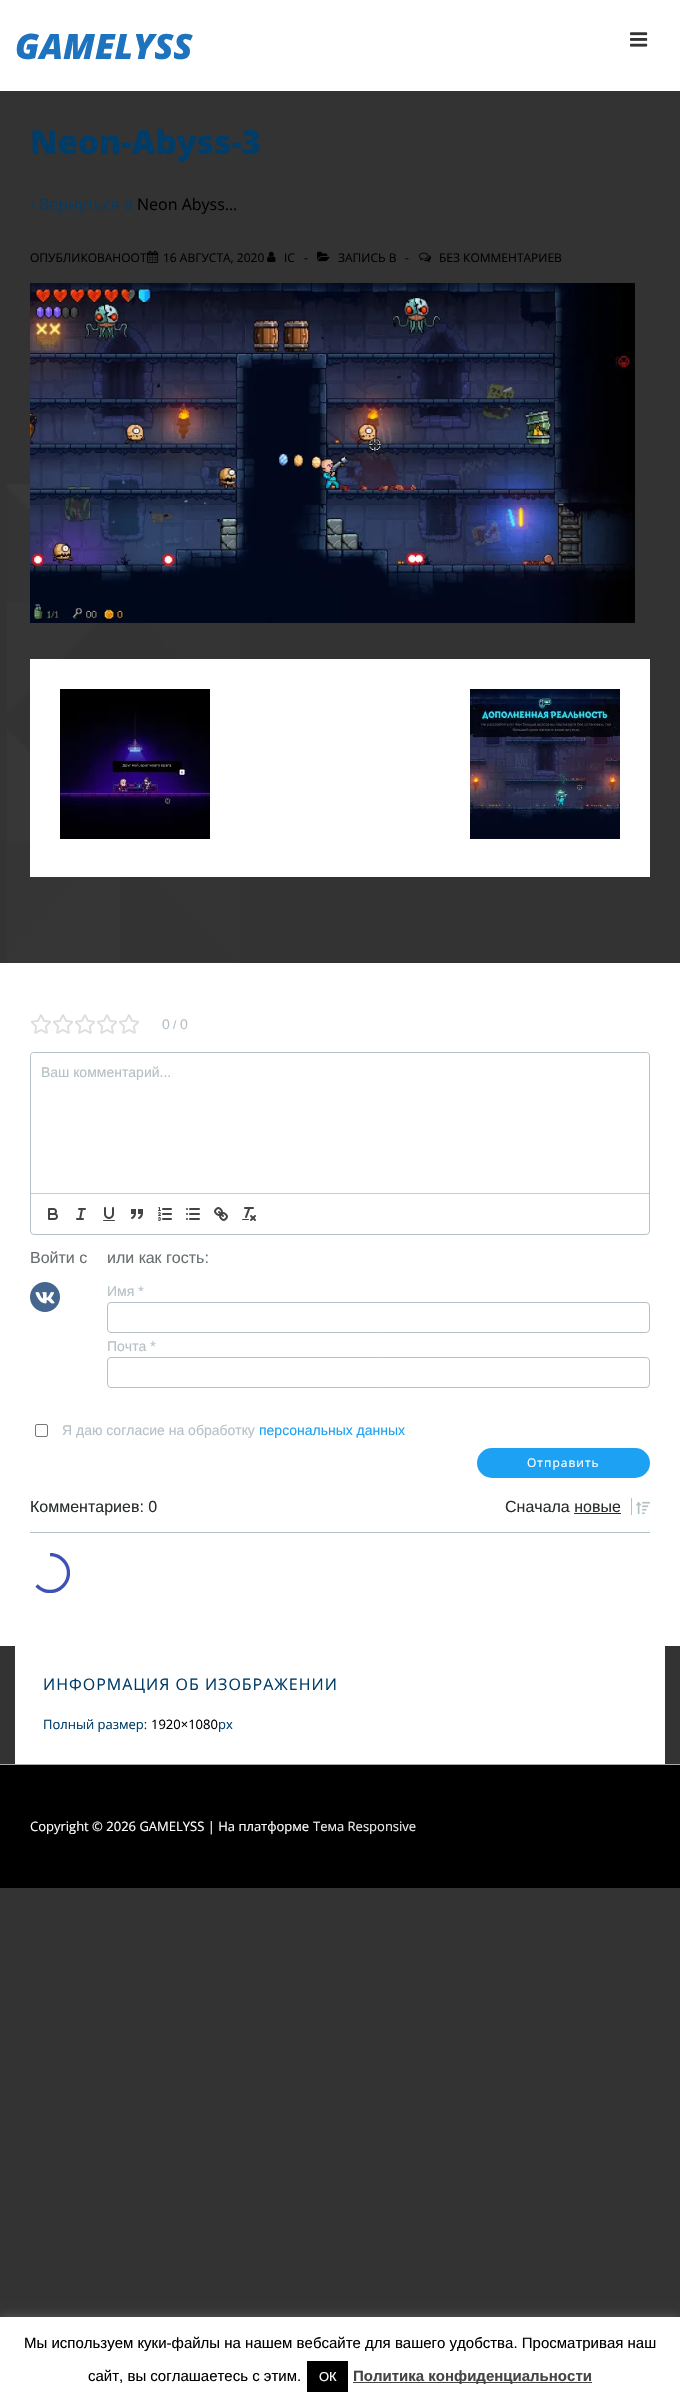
void draw(SkCanvas* c) {
SkPaint p;
p.setAntiAlias(true);
auto F=[&](const char* family, int weight, float size, bool italic = false){SkFontStyle style(weight, SkFontStyle::kNormal_Width,italic ? SkFontStyle::kItalic_Slant : SkFontStyle::kUpright_Slant);SkFont result(fontMgr->matchFamilyStyle(family, style), size);result.setSubpixel(true);return result;};
auto T=[&](const char* s, float x, float y, const SkFont& font){c->drawString(s, x, y, font, p);};
auto L=[&](const char* s, float x, float y, const SkFont& font, const SkPaint& ink, float letter, float word){std::vector<SkGlyphID> glyphs(font.countText(s, strlen(s), SkTextEncoding::kUTF8));std::vector<float> xs(glyphs.size());font.textToGlyphs(s, strlen(s), SkTextEncoding::kUTF8, glyphs);font.getXPos(glyphs, xs, x);float extra = 0;for (size_t i = 0; i < glyphs.size(); i++) {xs[i] += extra;extra += letter + word * (glyphs[i] == font.unicharToGlyph(' '));}c->drawTextBlob(SkTextBlob::MakeFromPosHGlyphs(glyphs, xs, y, font), 0, 0, ink);};
auto R=[&](float x, float y, float w, float h){c->drawRect(SkRect::MakeXYWH(x, y, w, h), p);};
auto Q=[&](float x, float y, float w, float h, float radius){c->drawRoundRect(SkRect::MakeXYWH(x, y, w, h), radius, radius, p);};
auto I=[&](const char* path, float x, float y, float w, float h){auto image = SkImages::DeferredFromEncodedData(SkData::MakeFromFileName(path));c->drawImageRect(image, SkRect::MakeXYWH(x, y, w, h), SkSamplingOptions());};
auto P=[&](const char* data, bool evenOdd = false){SkPath result = *SkParsePath::FromSVGString(data);if (evenOdd) result.setFillType(SkPathFillType::kEvenOdd);return result;};
c->clear(0xff333333);
I("1.png",7,484,233,479);
p.setColor(0xffffffff);
R(0,0,680,91);
auto f1 = F("Open Sans",800,35,true);
p.setColor(0xff1e73be);
T("GAMELYSS",15,59,f1);
I("2.png",630,32,18,15);
auto f2 = F("Open Sans",800,33);
p.setColor(0xff003c68);
T("Neon-Abyss-3",30,154,f2);
auto f3 = F("Open Sans",400,16);
T("‹ Вернуться в",30,210,f3);
p.setColor(0xff000000);
T("Neon Abyss…",137,210,f3);
auto f4 = F("Open Sans",400,12);
T("ОПУБЛИКОВАНООТ",30,262,f4);
I("3.png",147,250,12,13);
T("16 АВГУСТА, 2020",163,262,f4);
I("4.png",267,251,9,11);
T("IC",284,262,f4);
T("-",304,262,f4);
I("5.png",317,251,13,11);
T("ЗАПИСЬ В",338,262,f4);
T("-",405,262,f4);
I("6.png",419,252,12,10);
T("БЕЗ КОММЕНТАРИЕВ",439,262,f4);
I("7.png",30,283,605,340);
p.setColor(0xffffffff);
R(30,659,620,218);
I("8.png",60,689,150,150);
I("9.png",470,689,150,150);
R(0,963,680,683);
I("10.png",31,1014,20,20);
I("10.png",53,1014,20,20);
I("10.png",75,1014,20,20);
I("10.png",97,1014,20,20);
I("10.png",119,1014,20,20);
auto f5 = F("Liberation Sans",400,14);
p.setColor(0xffb6c1c6);
T("0",162,1029,f5);
auto f6 = F("Liberation Sans",400,12);
T("/",173,1029,f6);
T("0",180,1029,f5);
p.setStroke(true);
p.setStrokeWidth(1);
c->drawRoundRect(SkRect::MakeXYWH(30.5,1052.5,619,182),3.5,3.5,p);
p.setStroke(false);
p.setColor(0xffffffff);
Q(31,1053,618,140,4);
p.setColor(0xffb6c1c6);
T("Ваш комментарий...",41,1077,f5);
p.setColor(0xffc9cbcc);
R(31,1193,618,1);
I("11.png",48,1208,10,12);
I("12.png",76,1208,10,12);
I("13.png",103,1207,12,14);
I("14.png",131,1209,12,10);
I("15.png",158,1207,14,14);
I("16.png",186,1208,14,12);
I("17.png",214,1207,14,14);
I("18.png",242,1207,14,14);
auto f7 = F("Liberation Sans",400,16);
p.setColor(0xff696f71);
T("Войти с",30,1263,f7);
I("19.png",30,1282,30,30);
T("или как гость:",107,1263,f7);
p.setColor(0xffb6c1c6);
T("Имя *",107,1296,f5);
p.setStroke(true);
c->drawRoundRect(SkRect::MakeXYWH(107.5,1302.5,542,30),3.5,3.5,p);
p.setStroke(false);
T("Почта *",107,1351,f5);
p.setStroke(true);
c->drawRoundRect(SkRect::MakeXYWH(107.5,1357.5,542,30),3.5,3.5,p);
p.setColor(0xff767676);
c->drawRoundRect(SkRect::MakeXYWH(35.5,1424.5,12,12),1.5,1.5,p);
p.setStroke(false);
p.setColor(0xffb6c1c6);
T("Я даю согласие на обработку",62,1435,f5);
p.setColor(0xff1da1f2);
T("персональных данных",259,1435,f5);
Q(477,1448,173,30,15);
p.setColor(0xffffffff);
L("Отправить",527,1467,f4,p,1,0);
p.setColor(0xffb6c1c6);
R(30,1532,620,1);
p.setColor(0xff2a2e2e);
T("Комментариев: 0",30,1512,f7);
T("Сначала новые",505,1512,f7);
p.setColor(0xffb6c1c6);
R(631,1498,1,17);
I("20.png",636,1501,14,14);
p.setColor(0xff2a2e2e);
R(574,1513,47,1);
c->save();
c->clipRect(SkRect::MakeXYWH(30,1553,40,40));
p.setStroke(true);
p.setStrokeWidth(3.3);
p.setColor(0xff3f51b5);
c->drawPath(P("M50 1554.5c10 0 18.5 8.5 18.5 18.5c0 10-8.5 18.5-18.5 18.5c-5.5 0-10-2.5-13.5-6"),p);
c->restore();
p.setStroke(false);
p.setColor(0xffffffff);
R(15,1646,650,118);
p.setColor(0xff003c68);
L("ИНФОРМАЦИЯ ОБ ИЗОБРАЖЕНИИ",43,1690,f3,p,1,0);
auto f8 = F("Open Sans",400,13);
T("Полный размер:",43,1729,f8);
p.setColor(0xff000000);
T("1920×1080",151,1729,f8);
p.setColor(0xff003c68);
T("px",218,1729,f8);
p.setColor(0xff000000);
R(0,1765,680,123);
p.setColor(0xffaaaaaa);
R(0,1764,680,1);
p.setColor(0xffffffff);
T("Copyright © 2026 GAMELYSS | На платформе",30,1831,f8);
p.setColor(0xffeaeaea);
T("Тема Responsive",313,1831,f8);
p.setColor(0x4dacabab);
p.setMaskFilter(SkMaskFilter::MakeBlur(kNormal_SkBlurStyle, 5));
c->drawRect(SkRect::MakeXYWH(0,2316,680,87),p);
p.setMaskFilter(nullptr);
p.setColor(0xffffffff);
R(0,2317,680,87);
auto f9 = F("Liberation Sans",400,15);
p.setColor(0xff000000);
T("Мы используем куки-файлы на нашем вебсайте для вашего удобства. Просматривая наш",24,2348,f9);
T("сайт, вы соглашаетесь с этим.",88,2381,f9);
R(307,2361,41,31);
auto f10 = F("Liberation Sans",400,13);
p.setColor(0xffffffff);
T("ОК",319,2381,f10);
p.setColor(0xff444444);
R(353,2382,239,1);
auto f11 = F("Liberation Sans",700,15);
T("Политика конфиденциальности",353,2381,f11);
}
